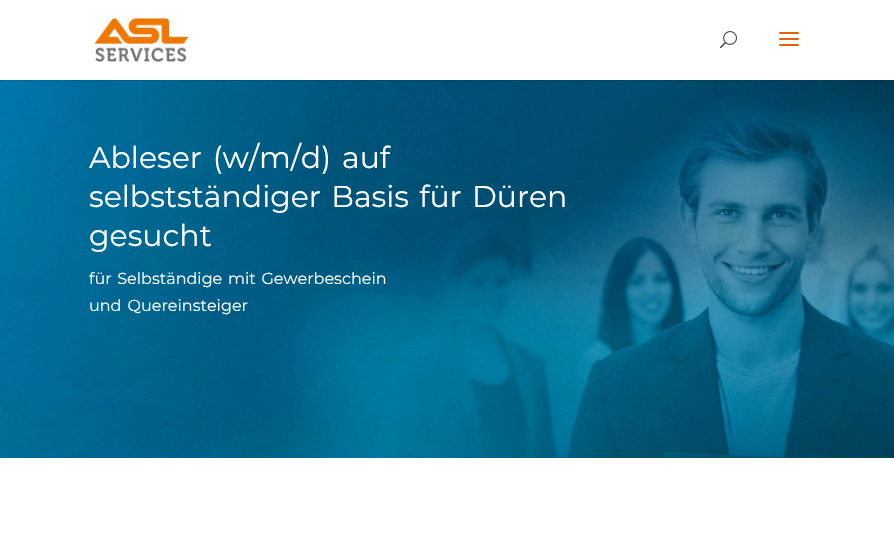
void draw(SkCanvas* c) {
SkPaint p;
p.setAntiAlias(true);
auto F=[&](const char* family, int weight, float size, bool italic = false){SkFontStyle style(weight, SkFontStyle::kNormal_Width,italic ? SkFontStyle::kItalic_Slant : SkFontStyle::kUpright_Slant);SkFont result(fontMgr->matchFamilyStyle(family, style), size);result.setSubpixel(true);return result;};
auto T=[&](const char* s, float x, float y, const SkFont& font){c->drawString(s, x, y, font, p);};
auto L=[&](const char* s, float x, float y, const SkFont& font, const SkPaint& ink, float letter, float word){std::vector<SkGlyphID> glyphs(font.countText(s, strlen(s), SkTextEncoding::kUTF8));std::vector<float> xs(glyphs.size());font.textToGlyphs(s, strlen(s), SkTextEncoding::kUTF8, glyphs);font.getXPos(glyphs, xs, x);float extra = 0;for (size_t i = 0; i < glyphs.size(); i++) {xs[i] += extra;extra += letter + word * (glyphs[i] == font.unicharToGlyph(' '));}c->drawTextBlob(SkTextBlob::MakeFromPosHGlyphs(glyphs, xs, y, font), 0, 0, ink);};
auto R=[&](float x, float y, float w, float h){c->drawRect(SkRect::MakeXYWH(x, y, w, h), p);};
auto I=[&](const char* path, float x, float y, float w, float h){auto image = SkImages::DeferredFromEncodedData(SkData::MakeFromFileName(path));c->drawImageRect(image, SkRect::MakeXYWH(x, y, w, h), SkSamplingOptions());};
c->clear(0xffffffff);
I("4.png",0,80,894,378);
p.setColor(0x1a000000);
R(0,80,894,1);
I("1.png",94,18,95,44);
I("2.png",720,31,17,18);
I("3.png",779,32,20,14);
auto f1 = F("Montserrat",400,30);
p.setColor(0xffffffff);
L("Ableser (w/m/d) auf",89,168,f1,p,0,3);
L("selbstständiger Basis für Düren",89,207,f1,p,0,2.5);
T("gesucht",89,246,f1);
auto f2 = F("Montserrat",400,16);
L("für Selbständige mit Gewerbeschein",89,284,f2,p,0,1.5);
L("und Quereinsteiger",89,311,f2,p,0,2);
}
